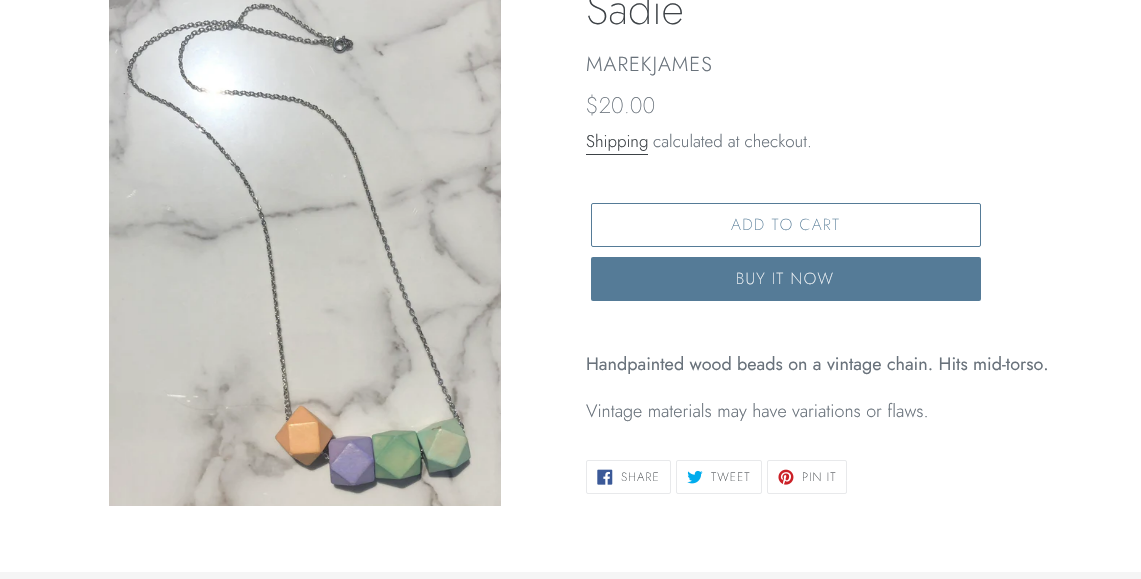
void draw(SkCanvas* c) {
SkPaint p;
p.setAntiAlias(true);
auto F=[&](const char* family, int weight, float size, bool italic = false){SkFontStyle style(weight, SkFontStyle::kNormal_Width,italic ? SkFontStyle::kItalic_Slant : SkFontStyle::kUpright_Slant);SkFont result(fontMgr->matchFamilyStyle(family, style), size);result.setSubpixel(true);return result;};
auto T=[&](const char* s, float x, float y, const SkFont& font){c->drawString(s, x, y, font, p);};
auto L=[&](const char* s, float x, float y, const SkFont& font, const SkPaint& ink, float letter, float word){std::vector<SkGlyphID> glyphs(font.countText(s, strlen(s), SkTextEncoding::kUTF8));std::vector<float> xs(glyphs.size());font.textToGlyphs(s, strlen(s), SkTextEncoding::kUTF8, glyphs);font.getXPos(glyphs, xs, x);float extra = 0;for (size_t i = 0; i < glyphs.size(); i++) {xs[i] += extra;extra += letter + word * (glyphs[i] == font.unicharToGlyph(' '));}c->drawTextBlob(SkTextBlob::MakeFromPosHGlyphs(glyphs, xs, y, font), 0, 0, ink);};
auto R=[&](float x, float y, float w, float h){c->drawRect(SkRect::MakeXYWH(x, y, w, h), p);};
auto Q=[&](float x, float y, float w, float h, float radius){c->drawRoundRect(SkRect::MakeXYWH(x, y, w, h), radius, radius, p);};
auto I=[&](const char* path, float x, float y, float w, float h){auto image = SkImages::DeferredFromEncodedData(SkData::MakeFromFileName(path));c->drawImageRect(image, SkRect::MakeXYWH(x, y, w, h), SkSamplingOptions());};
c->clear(0xffffffff);
I("1.png",109,0,392,506);
auto f1 = F("Jost",200,44);
p.setColor(0xff3d4246);
T("Sadie",586,24,f1);
auto f2 = F("Jost",300,20.25);
p.setColor(0xff69727b);
L("MAREKJAMES",586,71,f2,p,1,0);
auto f3 = F("Jost",200,22.5);
T("$20.00",586,113,f3);
auto f4 = F("Jost",300,17);
p.setColor(0xff3d4246);
T("Shipping",586,147,f4);
R(586,154,62,1);
p.setColor(0xff69727b);
T("calculated at checkout.",653,147,f4);
p.setStroke(true);
p.setStrokeWidth(1);
p.setColor(0xff557b97);
c->drawRoundRect(SkRect::MakeXYWH(591.5,203.5,389,43),1.5,1.5,p);
auto f5 = F("Jost",200,16);
p.setStroke(false);
L("ADD TO CART",731,230,f5,p,1.25,0);
Q(591,257,390,44,2);
p.setColor(0xffffffff);
L("BUY IT NOW",736,284,f5,p,1.25,0);
auto f6 = F("Jost",400,18);
p.setColor(0xff69727b);
T("Handpainted wood beads on a vintage chain. Hits mid-torso.",586,370,f6);
auto f7 = F("Jost",300,18);
T("Vintage materials may have variations or flaws.",586,417,f7);
p.setStroke(true);
p.setColor(0xffe8e9eb);
c->drawRoundRect(SkRect::MakeXYWH(586.5,460.5,84,33),1.5,1.5,p);
I("2.png",597,469,16,16);
auto f8 = F("Jost",200,12);
p.setStroke(false);
p.setColor(0xff3d4246);
L("SHARE",621,481,f8,p,1,0);
p.setStroke(true);
p.setColor(0xffe8e9eb);
c->drawRoundRect(SkRect::MakeXYWH(676.5,460.5,85,33),1.5,1.5,p);
I("3.png",687,470,16,14);
p.setStroke(false);
p.setColor(0xff3d4246);
L("TWEET",711,481,f8,p,1,0);
p.setStroke(true);
p.setColor(0xffe8e9eb);
c->drawRoundRect(SkRect::MakeXYWH(767.5,460.5,79,33),1.5,1.5,p);
I("4.png",778,469,16,16);
p.setStroke(false);
p.setColor(0xff3d4246);
L("PIN IT",802,481,f8,p,1,0);
p.setColor(0xfff5f5f5);
R(0,572,1141,7);
}
